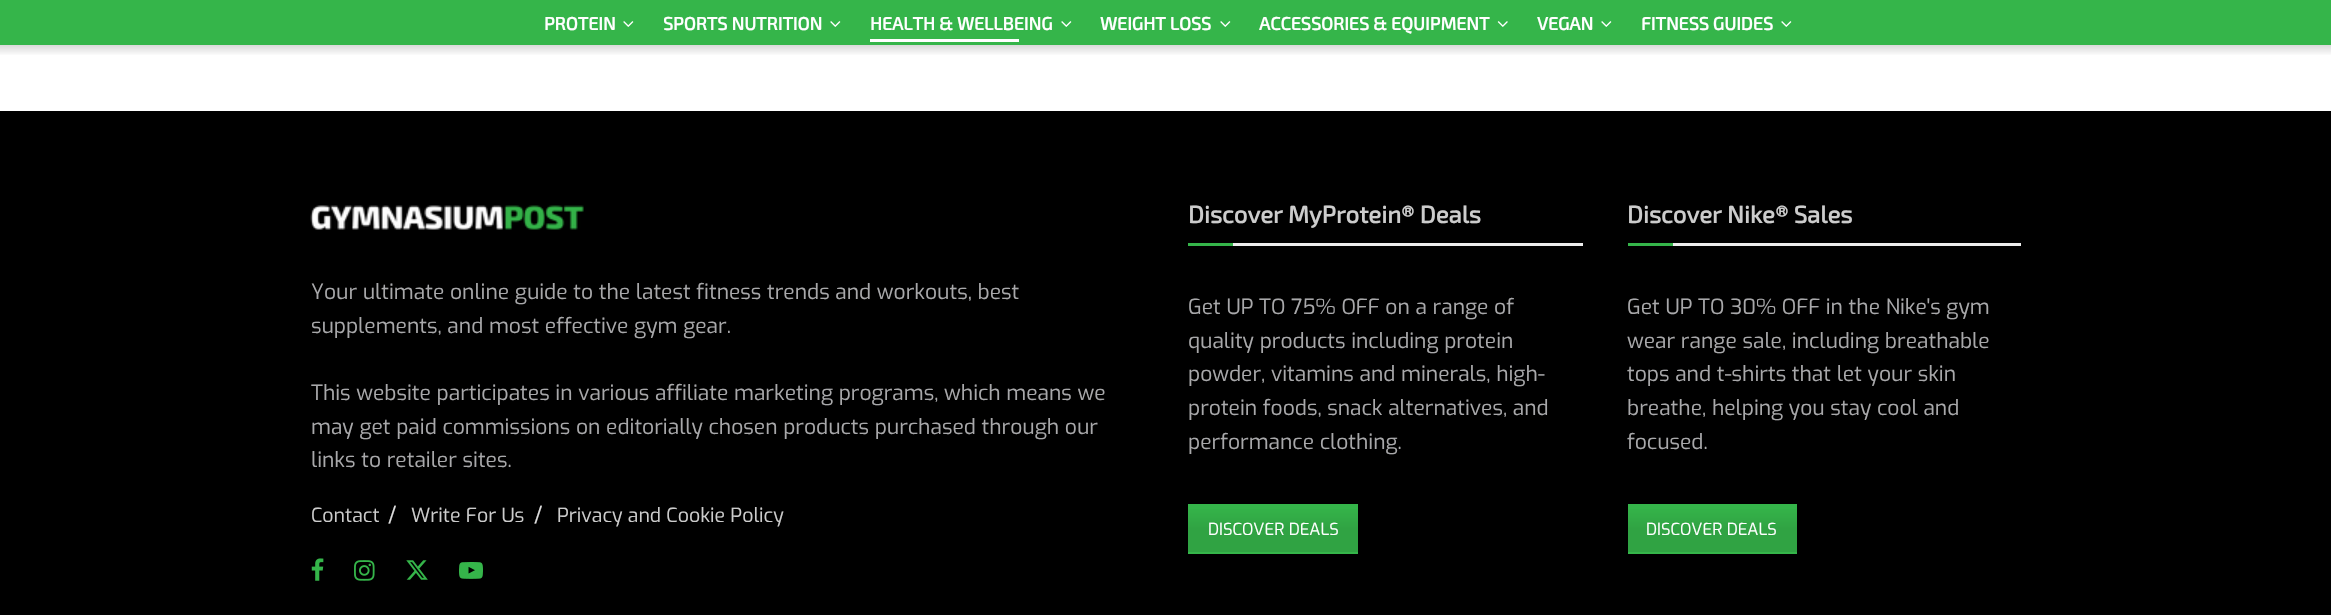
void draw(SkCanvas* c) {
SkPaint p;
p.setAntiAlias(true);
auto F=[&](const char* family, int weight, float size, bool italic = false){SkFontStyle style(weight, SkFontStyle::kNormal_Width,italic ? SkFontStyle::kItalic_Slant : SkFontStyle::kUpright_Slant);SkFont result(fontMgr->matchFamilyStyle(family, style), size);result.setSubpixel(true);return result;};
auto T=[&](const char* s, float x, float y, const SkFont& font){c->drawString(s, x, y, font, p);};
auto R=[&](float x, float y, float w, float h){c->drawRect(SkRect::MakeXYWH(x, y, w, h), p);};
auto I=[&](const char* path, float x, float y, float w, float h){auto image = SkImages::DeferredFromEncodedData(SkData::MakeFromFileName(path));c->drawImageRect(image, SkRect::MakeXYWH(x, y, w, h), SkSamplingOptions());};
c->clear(0xffffffff);
p.setColor(0xff35b54a);
R(0,0,2331,45);
auto f1 = F("Exo 2",700,18);
p.setColor(0xffffffff);
T("PROTEIN",544,30,f1);
I("1.png",623,21,11,6);
T("SPORTS NUTRITION",663,30,f1);
I("1.png",830,21,11,6);
T("HEALTH & WELLBEING",870,30,f1);
I("1.png",1061,21,11,6);
R(870,39,149,3);
T("WEIGHT LOSS",1100,30,f1);
I("1.png",1220,21,11,6);
T("ACCESSORIES & EQUIPMENT",1259,30,f1);
I("2.png",1497,21,11,6);
T("VEGAN",1537,30,f1);
I("1.png",1601,21,11,6);
T("FITNESS GUIDES",1641,30,f1);
I("1.png",1781,21,11,6);
{
const SkColor colors[] = {0xffd9d9d9,0xffffffff};
const float stops[] = {0,1};
const SkPoint ends[] = {{1166,45}, {1166,56}};
p.setShader(SkGradientShader::MakeLinear(ends, colors, stops, 2, SkTileMode::kClamp));
p.setAlpha(255);
}
R(0,45,2331,10);
p.setShader(nullptr);
p.setColor(0xff000000);
R(0,111,2331,504);
I("3.png",310,205,274,25);
auto f2 = F("Exo",400,21);
p.setColor(0xffa8a8aa);
T("Your ultimate online guide to the latest fitness trends and workouts, best",311,299,f2);
T("supplements, and most effective gym gear.",311,333,f2);
T("This website participates in various affiliate marketing programs, which means we",311,400,f2);
T("may get paid commissions on editorially chosen products purchased through our",311,434,f2);
T("links to retailer sites.",311,467,f2);
auto f3 = F("Exo",400,19.5);
p.setColor(0xffcccccc);
T("Contact",311,522,f3);
p.setColor(0xffe0e0e0);
T("/",388,522,f2);
p.setColor(0xffcccccc);
T("Write For Us",411,522,f3);
p.setColor(0xffe0e0e0);
T("/",534,522,f2);
p.setColor(0xffcccccc);
T("Privacy and Cookie Policy",557,522,f3);
I("4.png",311,558,13,23);
I("5.png",354,560,21,21);
I("6.png",406,560,22,20);
I("7.png",459,562,24,17);
p.setColor(0xffeeeeee);
R(1233,243,350,3);
auto f4 = F("Exo 2",700,24);
p.setColor(0xffcccccc);
T("Discover MyProtein® Deals",1188,223,f4);
p.setColor(0xff35b54a);
R(1188,243,45,3);
p.setColor(0xffa8a8aa);
T("Get UP TO 75% OFF on a range of",1188,314,f2);
T("quality products including protein",1188,348,f2);
T("powder, vitamins and minerals, high-",1188,381,f2);
T("protein foods, snack alternatives, and",1188,415,f2);
T("performance clothing.",1188,449,f2);
p.setColor(0xff35b54a);
R(1188,504,170,50);
{
const SkColor colors[] = {0xff35b54a,0xff30a343,0xff30a343};
const float stops[] = {0,.5,1};
const SkPoint ends[] = {{1356,506}, {1356,552}};
p.setShader(SkGradientShader::MakeLinear(ends, colors, stops, 3, SkTileMode::kClamp));
p.setAlpha(255);
}
R(1188,509,170,43);
auto f5 = F("Exo",400,16.5);
p.setShader(nullptr);
p.setColor(0xffffffff);
T("DISCOVER DEALS",1208,535,f5);
p.setColor(0xffeeeeee);
R(1673,243,348,3);
p.setColor(0xffcccccc);
T("Discover Nike® Sales",1627,223,f4);
p.setColor(0xff35b54a);
R(1628,243,45,3);
p.setColor(0xffa8a8aa);
T("Get UP TO 30% OFF in the Nike's gym",1627,314,f2);
T("wear range sale, including breathable",1627,348,f2);
T("tops and t-shirts that let your skin",1627,381,f2);
T("breathe, helping you stay cool and",1627,415,f2);
T("focused.",1627,449,f2);
p.setColor(0xff35b54a);
R(1628,504,169,50);
{
const SkColor colors[] = {0xff35b54a,0xff30a343,0xff30a343};
const float stops[] = {0,.5,1};
const SkPoint ends[] = {{1796,506}, {1796,552}};
p.setShader(SkGradientShader::MakeLinear(ends, colors, stops, 3, SkTileMode::kClamp));
p.setAlpha(255);
}
R(1628,509,169,43);
p.setShader(nullptr);
p.setColor(0xffffffff);
T("DISCOVER DEALS",1646,535,f5);
}
